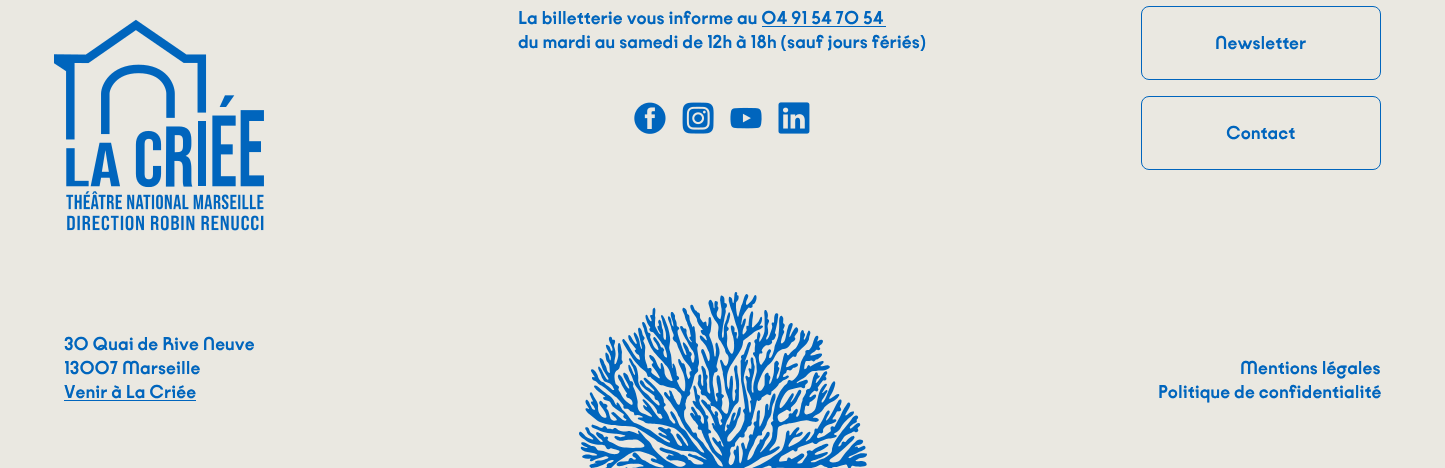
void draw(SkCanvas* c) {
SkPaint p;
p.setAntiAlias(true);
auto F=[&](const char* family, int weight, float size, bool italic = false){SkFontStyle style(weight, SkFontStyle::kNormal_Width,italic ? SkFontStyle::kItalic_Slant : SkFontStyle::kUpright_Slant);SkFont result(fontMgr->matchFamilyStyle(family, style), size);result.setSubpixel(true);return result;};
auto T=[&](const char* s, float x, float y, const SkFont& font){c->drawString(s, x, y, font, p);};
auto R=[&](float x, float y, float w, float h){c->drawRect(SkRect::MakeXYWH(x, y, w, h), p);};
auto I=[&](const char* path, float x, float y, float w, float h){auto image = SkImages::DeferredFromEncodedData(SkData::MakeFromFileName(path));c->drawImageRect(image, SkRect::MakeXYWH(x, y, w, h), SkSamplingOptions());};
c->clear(0xffeae8e1);
auto f1 = F("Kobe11",700,20);
p.setColor(0xff0065bd);
T("La billetterie vous informe au 04 91 54 70 54",518,24,f1);
R(762,26,124,1);
T("du mardi au samedi de 12h à 18h (sauf jours fériés)",518,48,f1);
I("1.png",634,102,32,32);
I("2.png",682,102,32,32);
I("3.png",730,107,32,22);
I("4.png",778,102,32,32);
p.setStroke(true);
p.setStrokeWidth(1);
c->drawRoundRect(SkRect::MakeXYWH(1141.5,6.5,239,73),7.5,7.5,p);
p.setStroke(false);
T("Newsletter",1215,49,f1);
p.setStroke(true);
c->drawRoundRect(SkRect::MakeXYWH(1141.5,96.5,239,73),7.5,7.5,p);
p.setStroke(false);
T("Contact",1226,139,f1);
T("Mentions légales",1240,374,f1);
T("Politique de confidentialité",1158,398,f1);
I("5.png",54,19,210,212);
T("30 Quai de Rive Neuve",64,350,f1);
T("13007 Marseille",64,374,f1);
T("Venir à La Criée",64,398,f1);
R(64,400,132,1);
I("6.png",579,292,288,176);
}
